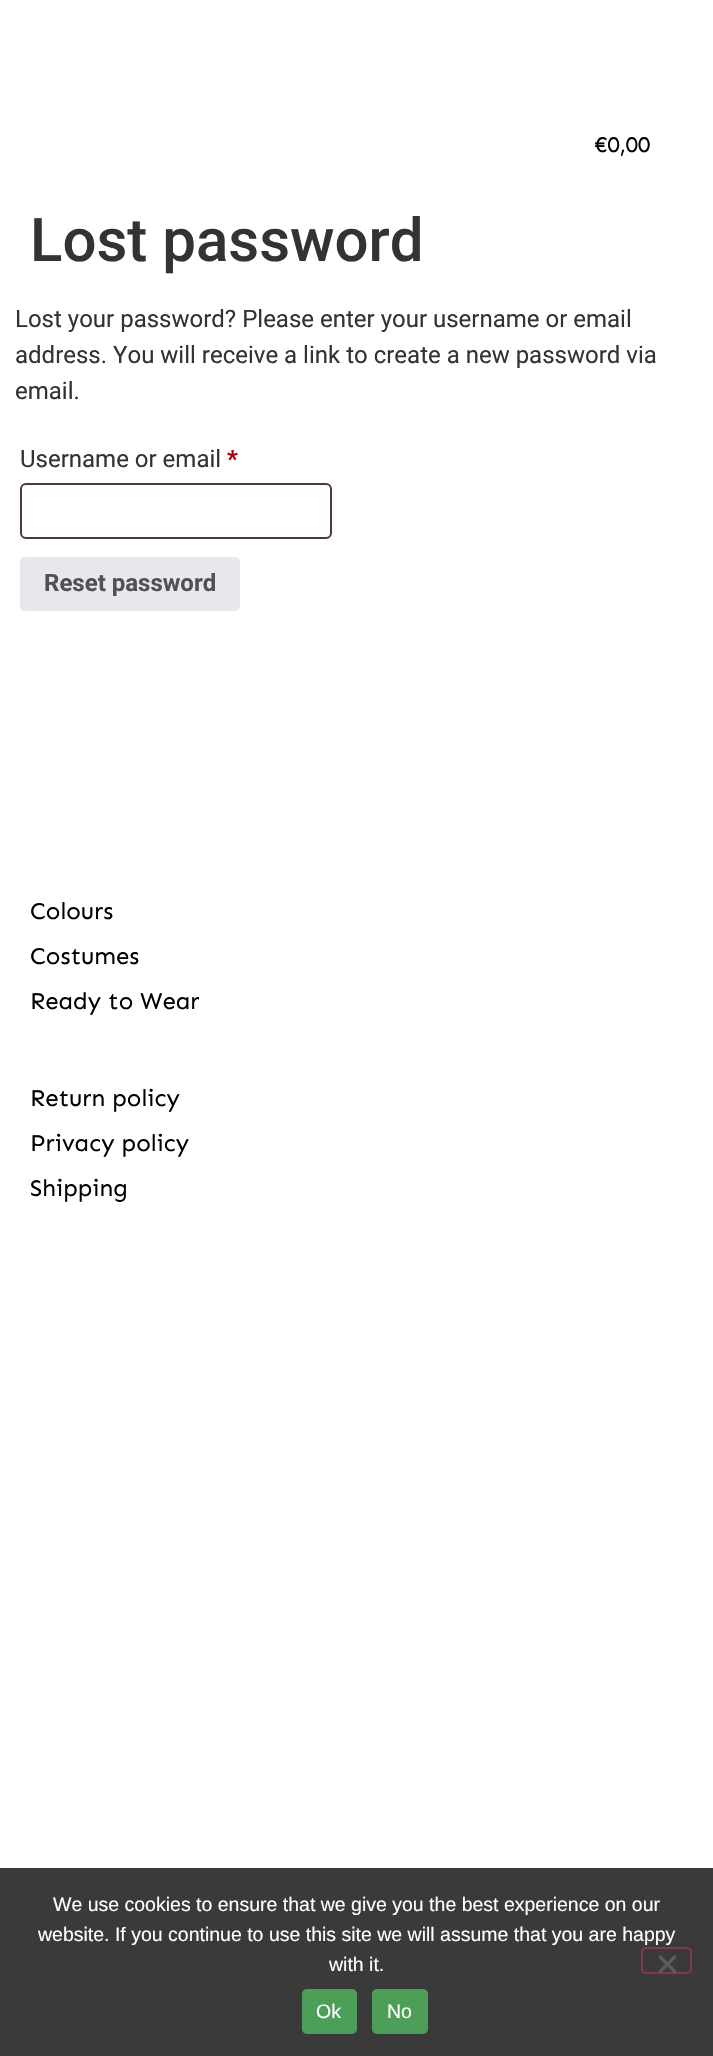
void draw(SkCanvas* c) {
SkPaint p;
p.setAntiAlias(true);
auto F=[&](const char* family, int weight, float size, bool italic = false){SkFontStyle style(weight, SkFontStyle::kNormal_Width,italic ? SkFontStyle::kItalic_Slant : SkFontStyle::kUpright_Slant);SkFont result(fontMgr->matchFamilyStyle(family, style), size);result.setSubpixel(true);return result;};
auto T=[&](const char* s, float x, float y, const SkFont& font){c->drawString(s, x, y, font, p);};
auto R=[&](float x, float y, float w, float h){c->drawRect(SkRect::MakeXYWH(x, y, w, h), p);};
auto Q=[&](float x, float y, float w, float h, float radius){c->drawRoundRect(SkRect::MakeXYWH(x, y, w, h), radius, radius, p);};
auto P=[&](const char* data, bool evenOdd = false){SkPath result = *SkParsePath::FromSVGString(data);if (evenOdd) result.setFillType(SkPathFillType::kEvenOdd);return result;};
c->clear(0xffffffff);
auto f1 = F("Sen",400,22.5);
p.setColor(0xff000000);
T("€0,00",594,152,f1);
auto f2 = F("Roboto",500,60);
p.setColor(0xff333333);
T("Lost password",30,261,f2);
auto f3 = F("Roboto",400,24);
T("Lost your password? Please enter your username or email",15,327,f3);
T("address. You will receive a link to create a new password via",15,363,f3);
T("email.",15,399,f3);
T("Username or email",20,467,f3);
auto f4 = F("Roboto",700,24);
p.setColor(0xffaa0000);
T("*",227,467,f4);
p.setStroke(true);
p.setStrokeWidth(2);
p.setColor(0xff4d3939);
c->drawRoundRect(SkRect::MakeXYWH(21,484,310,54),5,5,p);
p.setStroke(false);
p.setColor(0xffe9e6ed);
Q(20,557,220,54,5);
p.setColor(0xff515151);
T("Reset password",44,591,f4);
auto f5 = F("Sen",400,24);
p.setColor(0xff000000);
T("Colours",30,919,f5);
T("Costumes",30,964,f5);
T("Ready to Wear",30,1009,f5);
T("Return policy",30,1106,f5);
T("Privacy policy",30,1151,f5);
T("Shipping",30,1196,f5);
p.setColor(0xff3b3a3a);
R(0,1868,713,188);
auto f6 = F("Liberation Sans",400,19.5);
p.setColor(0xffffffff);
T("We use cookies to ensure that we give you the best experience on our",53,1911,f6);
T("website. If you continue to use this site we will assume that you are happy",38,1941,f6);
T("with it.",329,1971,f6);
p.setStroke(true);
p.setColor(0xff843750);
c->drawRoundRect(SkRect::MakeXYWH(642,1948,49,25),4,4,p);
p.setStroke(false);
p.setColor(0xff5e5d5d);
c->drawPath(P("M674.5 1955l2 2.5l-16 16l-2-2.5z"),p);
c->drawPath(P("M658.5 1957.5l2-2.5l16 16l-2 2.5z"),p);
p.setColor(0xff4d9e58);
Q(302,1989,55,45,5);
p.setColor(0xffffffff);
T("Ok",316,2018,f6);
p.setColor(0xff4d9e58);
Q(372,1989,56,45,5);
p.setColor(0xffffffff);
T("No",387,2018,f6);
}
